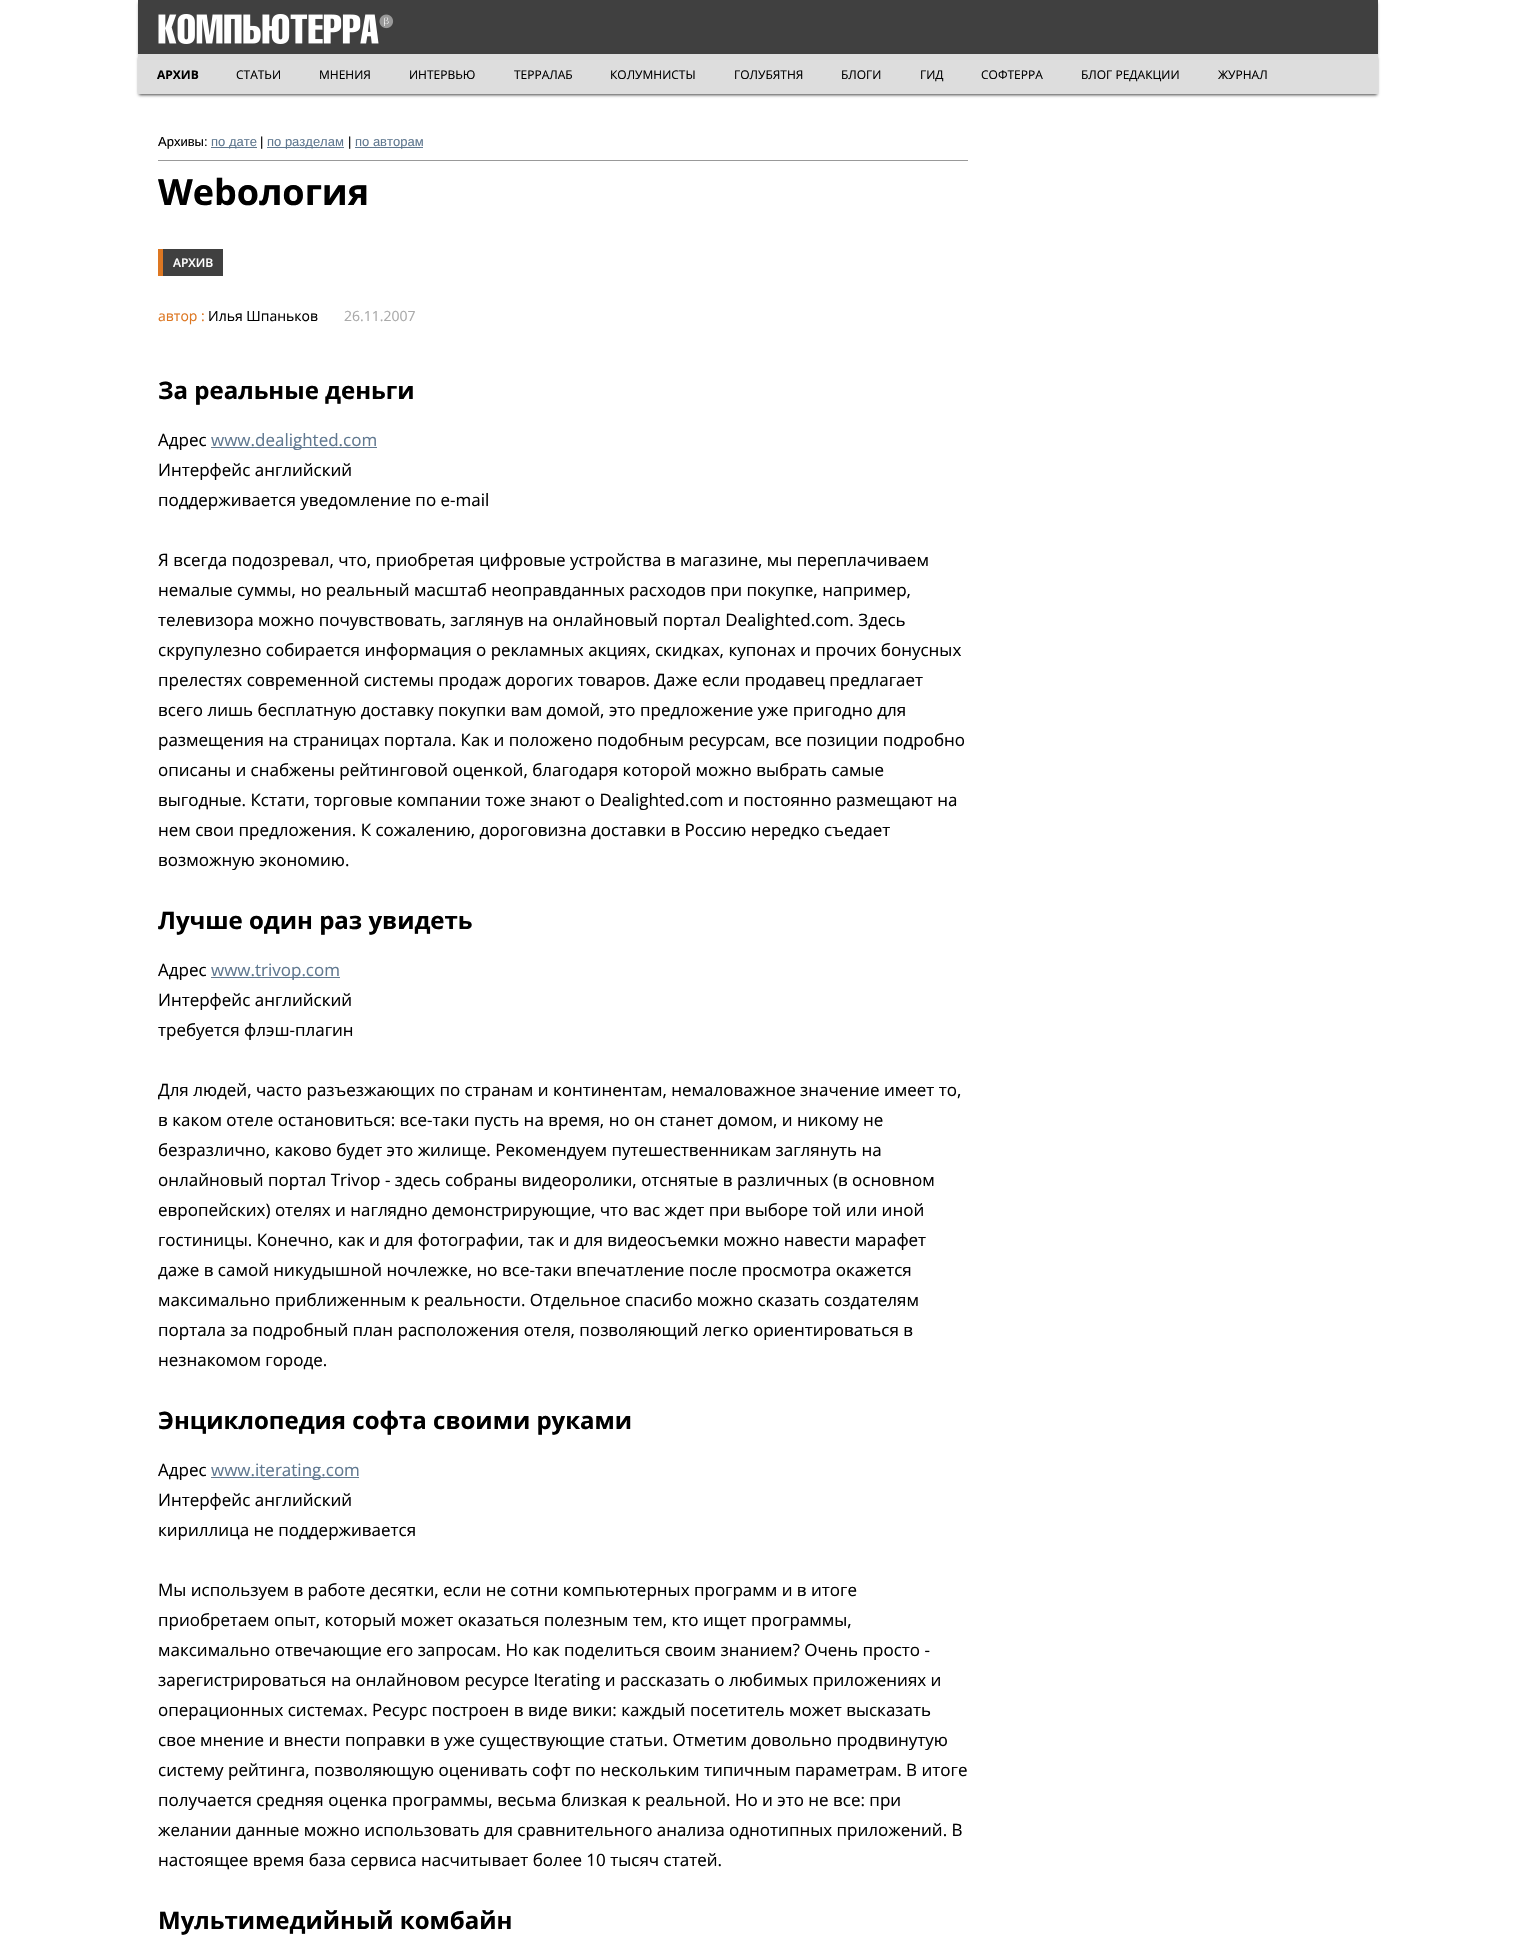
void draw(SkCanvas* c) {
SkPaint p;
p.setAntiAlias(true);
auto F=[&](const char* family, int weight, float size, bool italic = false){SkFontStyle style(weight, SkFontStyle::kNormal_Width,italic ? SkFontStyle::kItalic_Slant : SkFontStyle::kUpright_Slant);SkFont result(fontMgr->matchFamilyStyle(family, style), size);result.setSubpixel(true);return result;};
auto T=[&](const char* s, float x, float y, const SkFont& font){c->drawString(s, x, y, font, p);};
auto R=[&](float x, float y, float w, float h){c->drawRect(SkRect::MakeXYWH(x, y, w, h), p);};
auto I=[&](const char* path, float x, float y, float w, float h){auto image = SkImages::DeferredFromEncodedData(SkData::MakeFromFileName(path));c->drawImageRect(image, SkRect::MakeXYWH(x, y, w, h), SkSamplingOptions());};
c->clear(0xffffffff);
p.setColor(0xc4404040);
p.setMaskFilter(SkMaskFilter::MakeBlur(kNormal_SkBlurStyle, 1.5));
c->drawRect(SkRect::MakeXYWH(139,3,1238,52),p);
p.setMaskFilter(nullptr);
p.setColor(0xff404040);
R(138,0,1240,54);
I("1.png",158,14,236,30);
p.setColor(0xff444444);
p.setMaskFilter(SkMaskFilter::MakeBlur(kNormal_SkBlurStyle, 1.5));
c->drawRect(SkRect::MakeXYWH(139,57,1238,38),p);
p.setMaskFilter(nullptr);
p.setColor(0xffdddddd);
R(138,54,1240,40);
auto f1 = F("Open Sans",700,12);
p.setColor(0xff000000);
T("АРХИВ",157,79,f1);
auto f2 = F("Open Sans",400,12);
T("СТАТЬИ",236,79,f2);
T("МНЕНИЯ",319,79,f2);
T("ИНТЕРВЬЮ",409,79,f2);
T("ТЕРРАЛАБ",514,79,f2);
T("КОЛУМНИСТЫ",610,79,f2);
T("ГОЛУБЯТНЯ",734,79,f2);
T("БЛОГИ",841,79,f2);
T("ГИД",920,79,f2);
T("СОФТЕРРА",981,79,f2);
T("БЛОГ РЕДАКЦИИ",1081,79,f2);
T("ЖУРНАЛ",1218,79,f2);
p.setColor(0xff999999);
R(158,160,810,1);
auto f3 = F("Liberation Sans",400,13);
p.setColor(0xff000000);
T("Архивы:",158,146,f3);
p.setColor(0xff607890);
R(211,147,46,1);
T("по дате",211,146,f3);
p.setColor(0xff000000);
T("|",260,146,f3);
p.setColor(0xff607890);
R(267,147,77,1);
T("по разделам",267,146,f3);
p.setColor(0xff000000);
T("|",348,146,f3);
p.setColor(0xff607890);
R(355,147,68,1);
T("по авторам",355,146,f3);
auto f4 = F("Open Sans",700,36);
p.setColor(0xff000000);
T("Webология",158,205,f4);
p.setColor(0xff404040);
R(163,249,60,27);
p.setColor(0xffdd7722);
R(158,249,5,27);
auto f5 = F("Open Sans",600,12);
p.setColor(0xffffffff);
T("АРХИВ",173,267,f5);
auto f6 = F("Open Sans",400,14);
p.setColor(0xffdd7722);
T("автор :",158,321,f6);
p.setColor(0xff000000);
T("Илья Шпаньков",208,321,f6);
p.setColor(0xffaaaaaa);
T("26.11.2007",344,321,f6);
auto f7 = F("Open Sans",700,24);
p.setColor(0xff000000);
T("За реальные деньги",158,399,f7);
auto f8 = F("Open Sans",400,17);
T("Адрес",158,446,f8);
p.setColor(0xff607890);
R(211,447,166,1);
T("www.dealighted.com",211,446,f8);
p.setColor(0xff000000);
T("Интерфейс английский",158,476,f8);
T("поддерживается уведомление по e-mail",158,506,f8);
T("Я всегда подозревал, что, приобретая цифровые устройства в магазине, мы переплачиваем",158,566,f8);
T("немалые суммы, но реальный масштаб неоправданных расходов при покупке, например,",158,596,f8);
T("телевизора можно почувствовать, заглянув на онлайновый портал Dealighted.com. Здесь",158,626,f8);
T("скрупулезно собирается информация о рекламных акциях, скидках, купонах и прочих бонусных",158,656,f8);
T("прелестях современной системы продаж дорогих товаров. Даже если продавец предлагает",158,686,f8);
T("всего лишь бесплатную доставку покупки вам домой, это предложение уже пригодно для",158,716,f8);
T("размещения на страницах портала. Как и положено подобным ресурсам, все позиции подробно",158,746,f8);
T("описаны и снабжены рейтинговой оценкой, благодаря которой можно выбрать самые",158,776,f8);
T("выгодные. Кстати, торговые компании тоже знают о Dealighted.com и постоянно размещают на",158,806,f8);
T("нем свои предложения. К сожалению, дороговизна доставки в Россию нередко съедает",158,836,f8);
T("возможную экономию.",158,866,f8);
T("Лучше один раз увидеть",158,929,f7);
T("Адрес",158,976,f8);
p.setColor(0xff607890);
R(211,977,129,1);
T("www.trivop.com",211,976,f8);
p.setColor(0xff000000);
T("Интерфейс английский",158,1006,f8);
T("требуется флэш-плагин",158,1036,f8);
T("Для людей, часто разъезжающих по странам и континентам, немаловажное значение имеет то,",158,1096,f8);
T("в каком отеле остановиться: все-таки пусть на время, но он станет домом, и никому не",158,1126,f8);
T("безразлично, каково будет это жилище. Рекомендуем путешественникам заглянуть на",158,1156,f8);
T("онлайновый портал Trivop - здесь собраны видеоролики, отснятые в различных (в основном",158,1186,f8);
T("европейских) отелях и наглядно демонстрирующие, что вас ждет при выборе той или иной",158,1216,f8);
T("гостиницы. Конечно, как и для фотографии, так и для видеосъемки можно навести марафет",158,1246,f8);
T("даже в самой никудышной ночлежке, но все-таки впечатление после просмотра окажется",158,1276,f8);
T("максимально приближенным к реальности. Отдельное спасибо можно сказать создателям",158,1306,f8);
T("портала за подробный план расположения отеля, позволяющий легко ориентироваться в",158,1336,f8);
T("незнакомом городе.",158,1366,f8);
T("Энциклопедия софта своими руками",158,1429,f7);
T("Адрес",158,1476,f8);
p.setColor(0xff607890);
R(211,1477,148,1);
T("www.iterating.com",211,1476,f8);
p.setColor(0xff000000);
T("Интерфейс английский",158,1506,f8);
T("кириллица не поддерживается",158,1536,f8);
T("Мы используем в работе десятки, если не сотни компьютерных программ и в итоге",158,1596,f8);
T("приобретаем опыт, который может оказаться полезным тем, кто ищет программы,",158,1626,f8);
T("максимально отвечающие его запросам. Но как поделиться своим знанием? Очень просто -",158,1656,f8);
T("зарегистрироваться на онлайновом ресурсе Iterating и рассказать о любимых приложениях и",158,1686,f8);
T("операционных системах. Ресурс построен в виде вики: каждый посетитель может высказать",158,1716,f8);
T("свое мнение и внести поправки в уже существующие статьи. Отметим довольно продвинутую",158,1746,f8);
T("систему рейтинга, позволяющую оценивать софт по нескольким типичным параметрам. В итоге",158,1776,f8);
T("получается средняя оценка программы, весьма близкая к реальной. Но и это не все: при",158,1806,f8);
T("желании данные можно использовать для сравнительного анализа однотипных приложений. В",158,1836,f8);
T("настоящее время база сервиса насчитывает более 10 тысяч статей.",158,1866,f8);
T("Мультимедийный комбайн",158,1929,f7);
}
